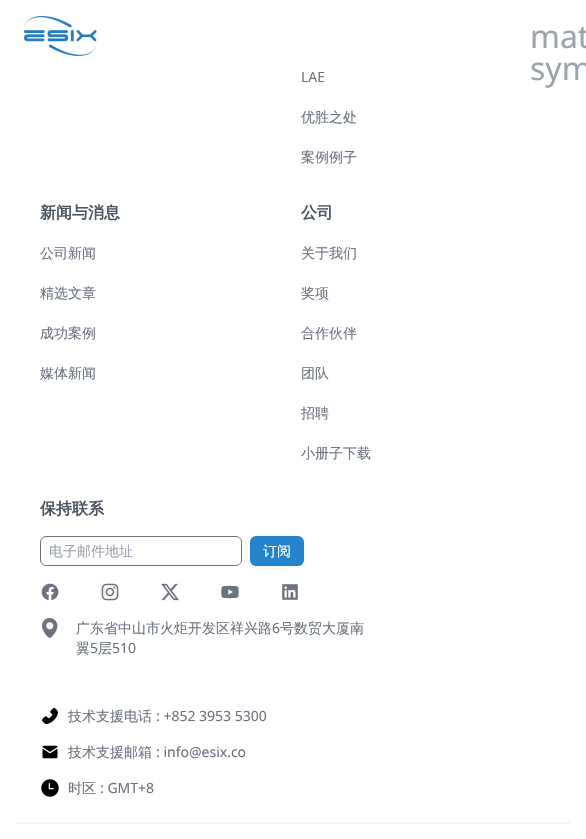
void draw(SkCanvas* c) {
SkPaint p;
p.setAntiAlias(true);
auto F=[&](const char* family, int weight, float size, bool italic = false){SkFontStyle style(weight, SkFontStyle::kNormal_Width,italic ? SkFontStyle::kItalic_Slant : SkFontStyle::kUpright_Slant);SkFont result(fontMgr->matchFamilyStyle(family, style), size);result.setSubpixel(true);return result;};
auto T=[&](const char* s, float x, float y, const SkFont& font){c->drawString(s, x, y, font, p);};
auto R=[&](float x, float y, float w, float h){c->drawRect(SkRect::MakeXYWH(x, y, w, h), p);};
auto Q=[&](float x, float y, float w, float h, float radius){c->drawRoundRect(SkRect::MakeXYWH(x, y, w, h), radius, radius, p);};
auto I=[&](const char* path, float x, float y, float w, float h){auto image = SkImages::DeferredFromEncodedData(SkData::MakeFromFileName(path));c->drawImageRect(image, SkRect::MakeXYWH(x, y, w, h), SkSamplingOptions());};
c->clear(0xffffffff);
auto f1 = F("Noto Sans",400,14);
p.setColor(0xff6b7280);
T("LAE",301,82,f1);
p.setColor(0xffffffff);
R(312,71,2,1);
I("1.png",24,16,73,40);
auto f2 = F("Noto Sans",400,32);
p.setColor(0xff9ca3af);
T("mat",530,48,f2);
T("sym",530,80,f2);
auto f3 = F("WenQuanYi Zen Hei",500,14);
p.setColor(0xff6b7280);
T("优胜之处",301,122,f3);
T("案例例子",301,162,f3);
auto f4 = F("WenQuanYi Zen Hei",700,16);
p.setColor(0xff4b5563);
T("新闻与消息",40,218,f4);
p.setColor(0xff6b7280);
T("公司新闻",40,258,f3);
T("精选文章",40,298,f3);
T("成功案例",40,338,f3);
T("媒体新闻",40,378,f3);
p.setColor(0xff4b5563);
T("公司",301,218,f4);
p.setColor(0xff6b7280);
T("关于我们",301,258,f3);
T("奖项",301,298,f3);
T("合作伙伴",301,338,f3);
T("团队",301,378,f3);
T("招聘",301,418,f3);
T("小册子下载",301,458,f3);
p.setColor(0xff4b5563);
T("保持联系",40,514,f4);
p.setStroke(true);
p.setStrokeWidth(1);
p.setColor(0xff6b7280);
c->drawRoundRect(SkRect::MakeXYWH(40.5,536.5,201,29),5.5,5.5,p);
p.setStroke(false);
p.setColor(0xff9ca3af);
T("电子邮件地址",49,556,f3);
p.setColor(0x0d000000);
p.setMaskFilter(SkMaskFilter::MakeBlur(kNormal_SkBlurStyle, 1));
c->drawRoundRect(SkRect::MakeXYWH(250,537,54,30),6,6,p);
p.setMaskFilter(nullptr);
p.setColor(0xff2583cb);
Q(250,536,54,30,6);
p.setColor(0xffffffff);
T("订阅",263,556,f3);
I("2.png",41,583,18,18);
I("3.png",101,583,18,18);
I("4.png",161,583,18,18);
I("5.png",221,585,18,14);
I("6.png",282,584,16,16);
I("7.png",42,618,16,20);
p.setColor(0xff6b7280);
T("广东省中山市火炬开发区祥兴路",76,633,f3);
T("6",272,633,f1);
T("号数贸大厦南",280,633,f3);
T("翼",76,653,f3);
T("5",90,653,f1);
T("层",98,653,f3);
T("510",112,653,f1);
I("8.png",42,708,16,16);
T("技术支援电话",68,721,f3);
T(": +852 3953 5300",156,721,f1);
I("9.png",42,745,16,14);
T("技术支援邮箱",68,757,f3);
T(": info@esix.co",156,757,f1);
I("10.png",41,779,18,18);
T("时区",68,793,f3);
T(": GMT+8",100,793,f1);
p.setColor(0xfff3f4f6);
R(16,822,554,2);
}
